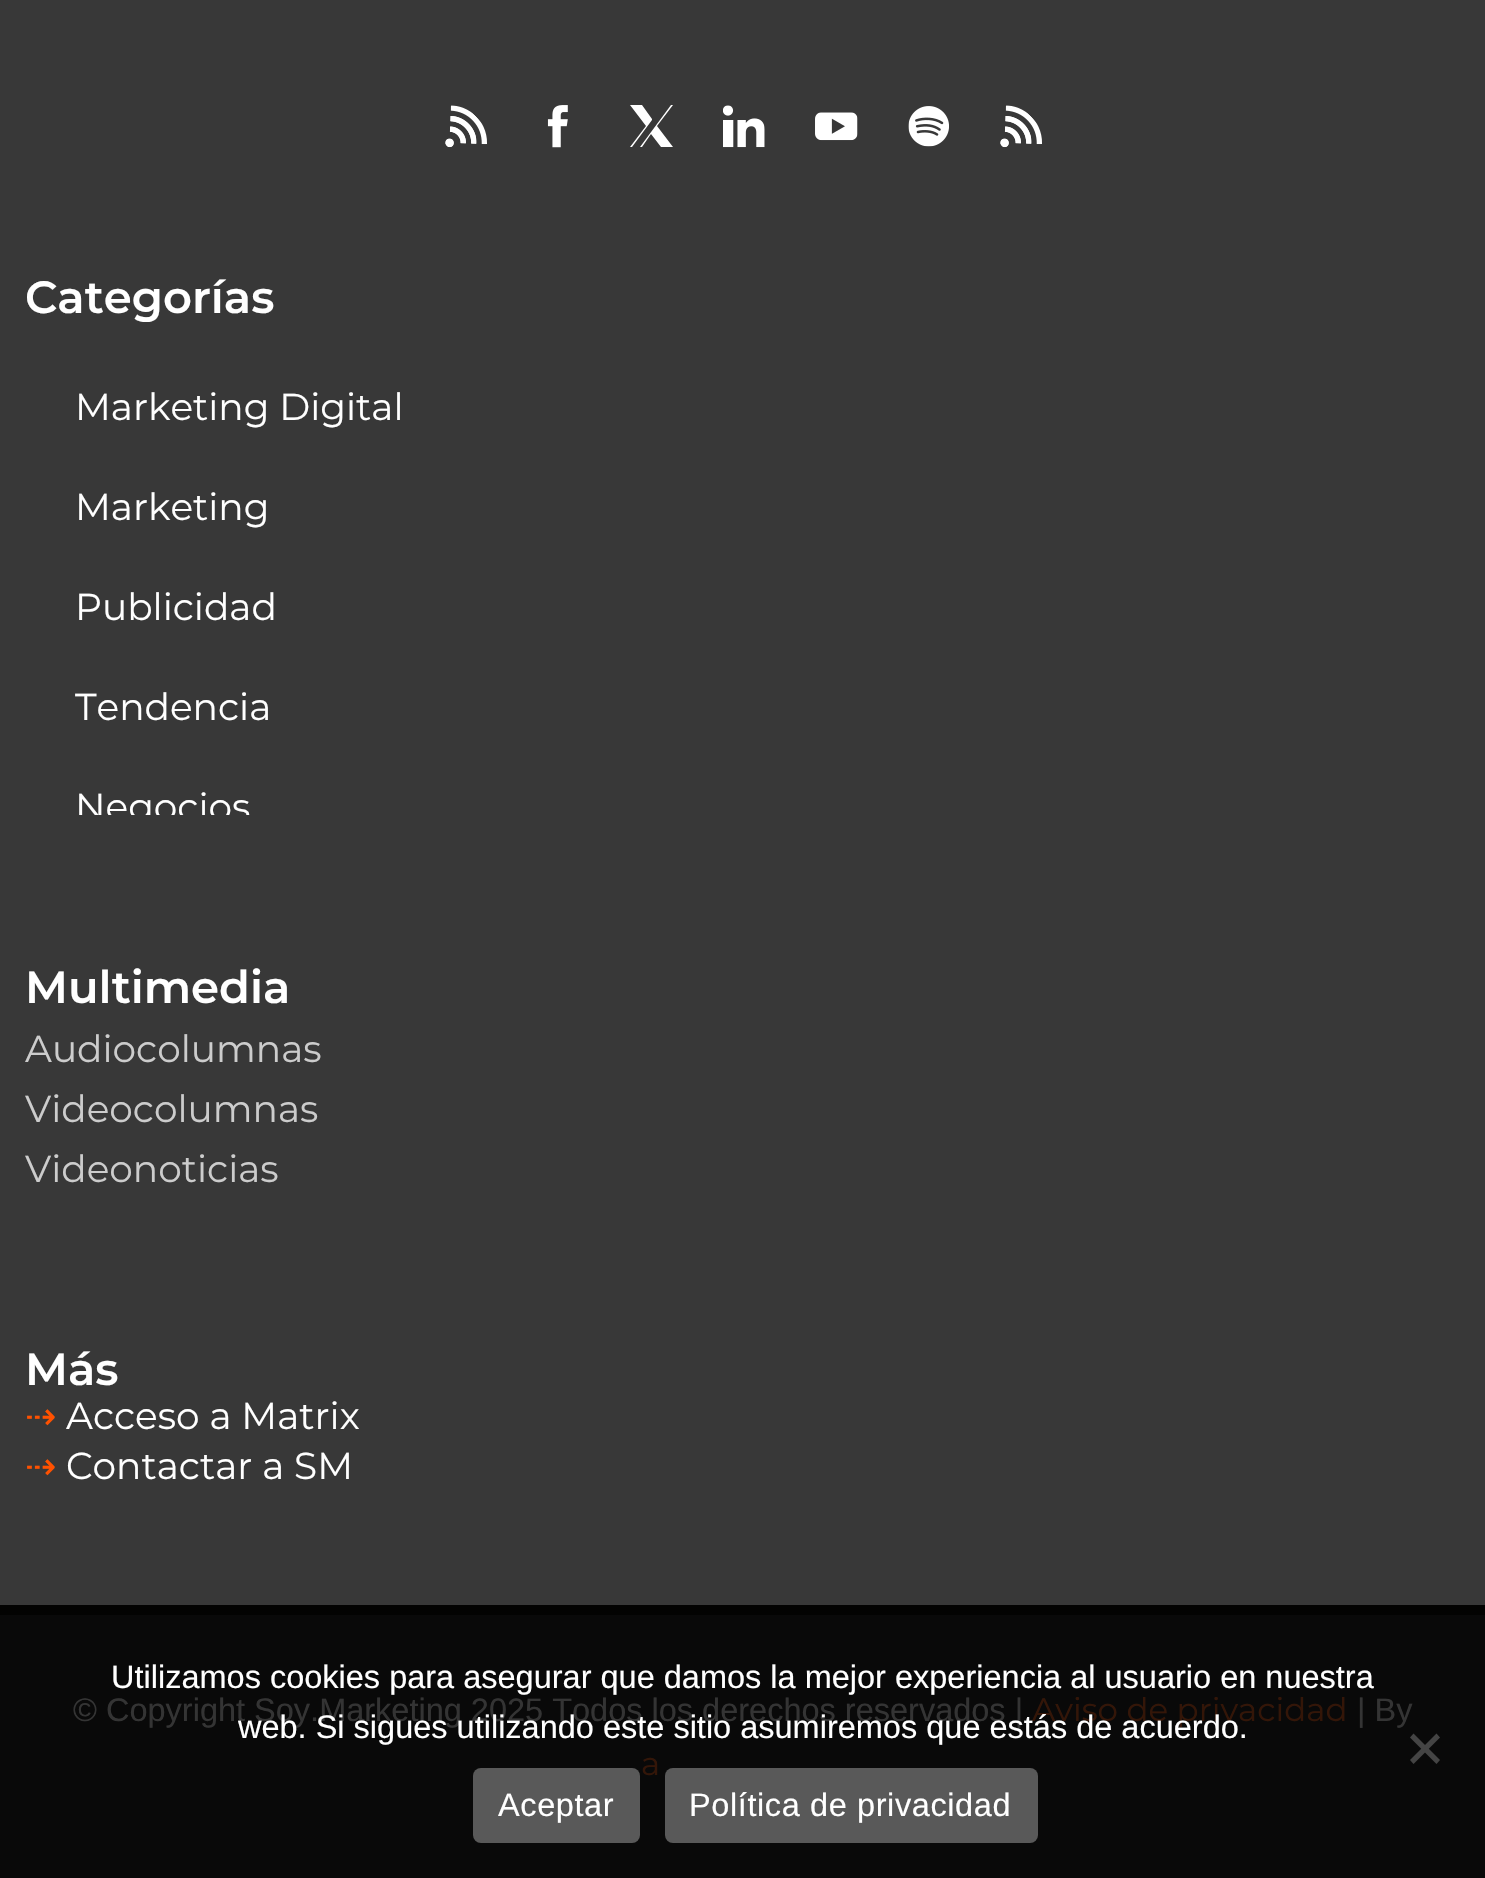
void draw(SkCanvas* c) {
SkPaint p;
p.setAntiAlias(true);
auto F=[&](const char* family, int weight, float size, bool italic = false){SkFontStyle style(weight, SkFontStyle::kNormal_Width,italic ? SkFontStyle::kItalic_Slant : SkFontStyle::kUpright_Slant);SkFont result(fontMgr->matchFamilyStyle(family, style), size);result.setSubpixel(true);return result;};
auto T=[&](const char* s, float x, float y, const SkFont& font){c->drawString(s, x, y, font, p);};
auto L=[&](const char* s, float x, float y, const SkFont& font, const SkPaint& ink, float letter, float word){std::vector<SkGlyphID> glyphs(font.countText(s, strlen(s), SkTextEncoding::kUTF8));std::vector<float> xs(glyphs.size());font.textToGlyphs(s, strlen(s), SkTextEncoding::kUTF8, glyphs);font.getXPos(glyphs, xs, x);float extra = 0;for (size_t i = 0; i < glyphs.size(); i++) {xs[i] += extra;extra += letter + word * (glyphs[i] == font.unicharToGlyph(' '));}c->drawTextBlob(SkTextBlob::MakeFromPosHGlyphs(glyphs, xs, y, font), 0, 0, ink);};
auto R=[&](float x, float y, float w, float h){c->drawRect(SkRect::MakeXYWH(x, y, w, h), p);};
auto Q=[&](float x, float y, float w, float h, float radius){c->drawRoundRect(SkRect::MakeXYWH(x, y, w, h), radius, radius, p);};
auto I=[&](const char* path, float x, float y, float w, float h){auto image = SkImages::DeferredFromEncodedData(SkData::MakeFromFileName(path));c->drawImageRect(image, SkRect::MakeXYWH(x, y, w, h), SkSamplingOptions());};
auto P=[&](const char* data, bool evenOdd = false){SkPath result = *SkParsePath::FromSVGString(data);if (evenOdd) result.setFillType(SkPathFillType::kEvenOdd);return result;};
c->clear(0xff030302);
p.setColor(0xff383838);
R(0,0,1485,1605);
I("1.png",445,105,42,43);
I("2.png",547,105,21,43);
p.setColor(0xffffffff);
c->drawPath(P("M657 126l16-21h-2l-31 42h2l9-13l10 13h12zm-5-6v-1l-10-14h-12l16 21l-16 21h2z"),p);
I("3.png",723,105,42,43);
I("4.png",815,112,43,29);
I("5.png",908,106,41,41);
I("1.png",1000,105,42,43);
auto f1 = F("Montserrat",600,45);
T("Categorías",25,313,f1);
auto f2 = F("Montserrat",400,37.5);
T("Marketing Digital",75,420,f2);
T("Marketing",75,520,f2);
T("Publicidad",75,620,f2);
T("Tendencia",75,720,f2);
c->save();
c->clipRect(SkRect::MakeXYWH(25,358,1435,457));
T("Negocios",75,820,f2);
c->restore();
T("Multimedia",25,1003,f1);
p.setColor(0xffcccccc);
T("Audiocolumnas",25,1062,f2);
T("Videocolumnas",25,1122,f2);
T("Videonoticias",25,1182,f2);
p.setColor(0xffffffff);
T("Más",25,1385,f1);
auto f3 = F("DejaVu Sans",400,37.5);
p.setColor(0xffff5100);
T("⇢",25,1429,f3);
p.setColor(0xffffffff);
T("Acceso a Matrix",66,1429,f2);
p.setColor(0xffff5100);
T("⇢",25,1479,f3);
p.setColor(0xffffffff);
T("Contactar a SM",66,1479,f2);
p.setColor(0xff090909);
R(0,1615,1485,263);
auto f4 = F("Liberation Sans",400,32.5);
p.setColor(0xff343434);
T("© Copyright Soy.Marketing 2025 Todos los derechos reservados |",73,1721,f4);
auto f5 = F("Montserrat",400,32.5);
p.setColor(0xff341608);
T("Aviso de privacidad",1032,1721,f5);
p.setColor(0xff343434);
T("| By",1357,1721,f4);
p.setColor(0xff341608);
T("a",641,1775,f5);
p.setColor(0xffffffff);
T("Utilizamos cookies para asegurar que damos la mejor experiencia al usuario en nuestra",111,1688,f4);
T("web. Si sigues utilizando este sitio asumiremos que estás de acuerdo.",238,1738,f4);
p.setColor(0xff444444);
c->drawPath(P("M1436.5 1733.5l3.5 4l-26.5 26.5l-3.5-4z"),p);
c->drawPath(P("M1410 1737.5l3.5-4l26.5 26.5l-3.5 4z"),p);
p.setColor(0xff595959);
Q(473,1768,167,75,8);
p.setColor(0xffffffff);
L("Aceptar",498,1816,f4,p,.6,0);
p.setColor(0xff595959);
Q(665,1768,373,75,8);
p.setColor(0xffffffff);
L("Política de privacidad",689,1816,f4,p,.6,0);
}
